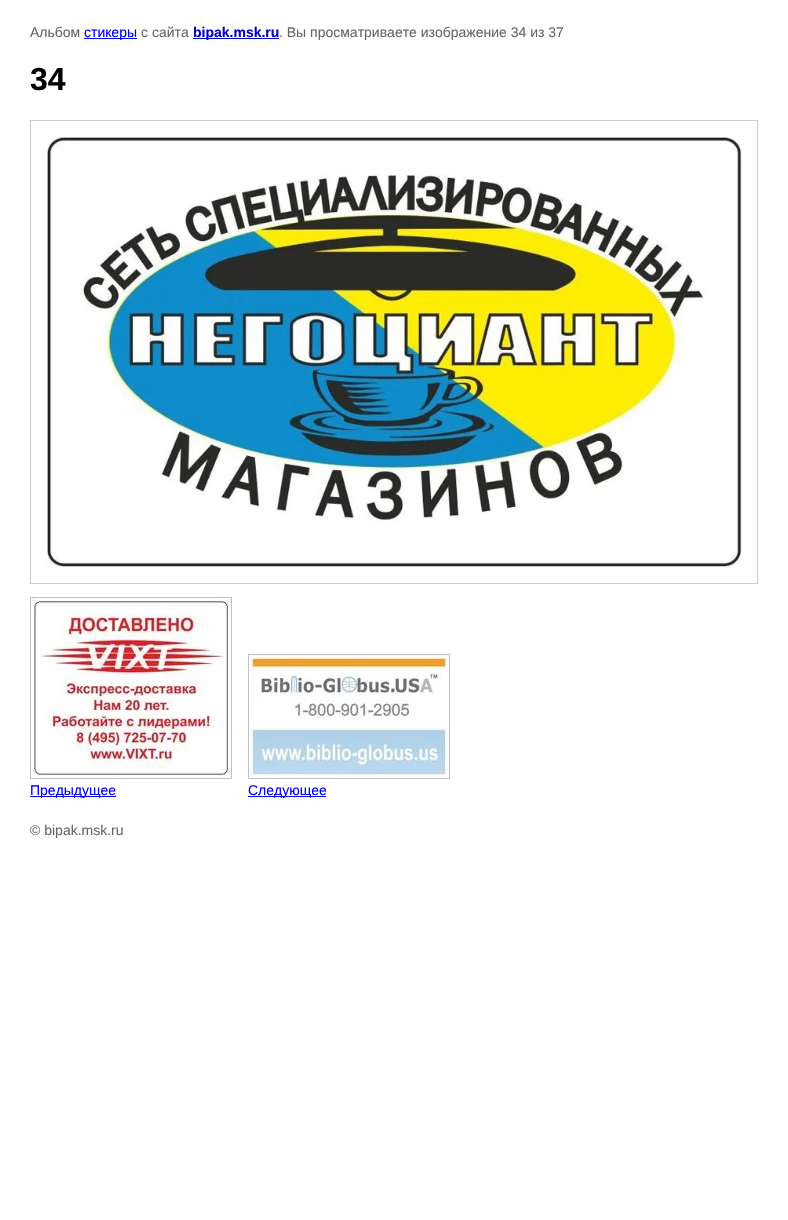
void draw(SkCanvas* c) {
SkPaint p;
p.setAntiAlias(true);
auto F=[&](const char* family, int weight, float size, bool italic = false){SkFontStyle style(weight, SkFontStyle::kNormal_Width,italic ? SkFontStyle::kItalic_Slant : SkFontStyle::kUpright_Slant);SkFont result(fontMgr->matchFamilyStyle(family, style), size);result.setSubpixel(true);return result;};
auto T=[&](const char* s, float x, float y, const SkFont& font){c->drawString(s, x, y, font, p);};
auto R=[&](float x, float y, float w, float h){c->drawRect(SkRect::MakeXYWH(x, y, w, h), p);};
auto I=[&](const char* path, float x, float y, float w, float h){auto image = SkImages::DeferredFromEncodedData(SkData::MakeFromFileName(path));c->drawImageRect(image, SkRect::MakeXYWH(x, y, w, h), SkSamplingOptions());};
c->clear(0xffffffff);
auto f1 = F("Liberation Sans",400,14);
p.setColor(0xff666666);
T("Альбом",30,37,f1);
p.setColor(0xff0000ff);
R(84,38,53,1);
T("стикеры",84,37,f1);
p.setColor(0xff666666);
T("с сайта",141,37,f1);
p.setColor(0xff0000cc);
R(193,38,86,1);
auto f2 = F("Liberation Sans",700,14);
T("bipak.msk.ru",193,37,f2);
p.setColor(0xff666666);
T(". Вы просматриваете изображение 34 из 37",279,37,f1);
auto f3 = F("Liberation Sans",700,32);
p.setColor(0xff000000);
T("34",30,90,f3);
p.setStroke(true);
p.setStrokeWidth(1);
p.setColor(0xffcccccc);
c->drawRect(SkRect::MakeXYWH(30.5,120.5,727,463),p);
I("1.png",47,137,695,431);
p.setColor(0xffc0c0c0);
c->drawRect(SkRect::MakeXYWH(30.5,597.5,201,181),p);
I("2.png",31,598,200,180);
p.setStroke(false);
p.setColor(0xff0000ff);
R(30,796,86,1);
T("Предыдущее",30,795,f1);
p.setStroke(true);
p.setColor(0xffc0c0c0);
c->drawRect(SkRect::MakeXYWH(248.5,654.5,201,124),p);
I("3.png",249,655,200,121);
p.setStroke(false);
p.setColor(0xff0000ff);
R(248,796,78,1);
T("Следующее",248,795,f1);
p.setColor(0xff666666);
T("© bipak.msk.ru",30,835,f1);
}
